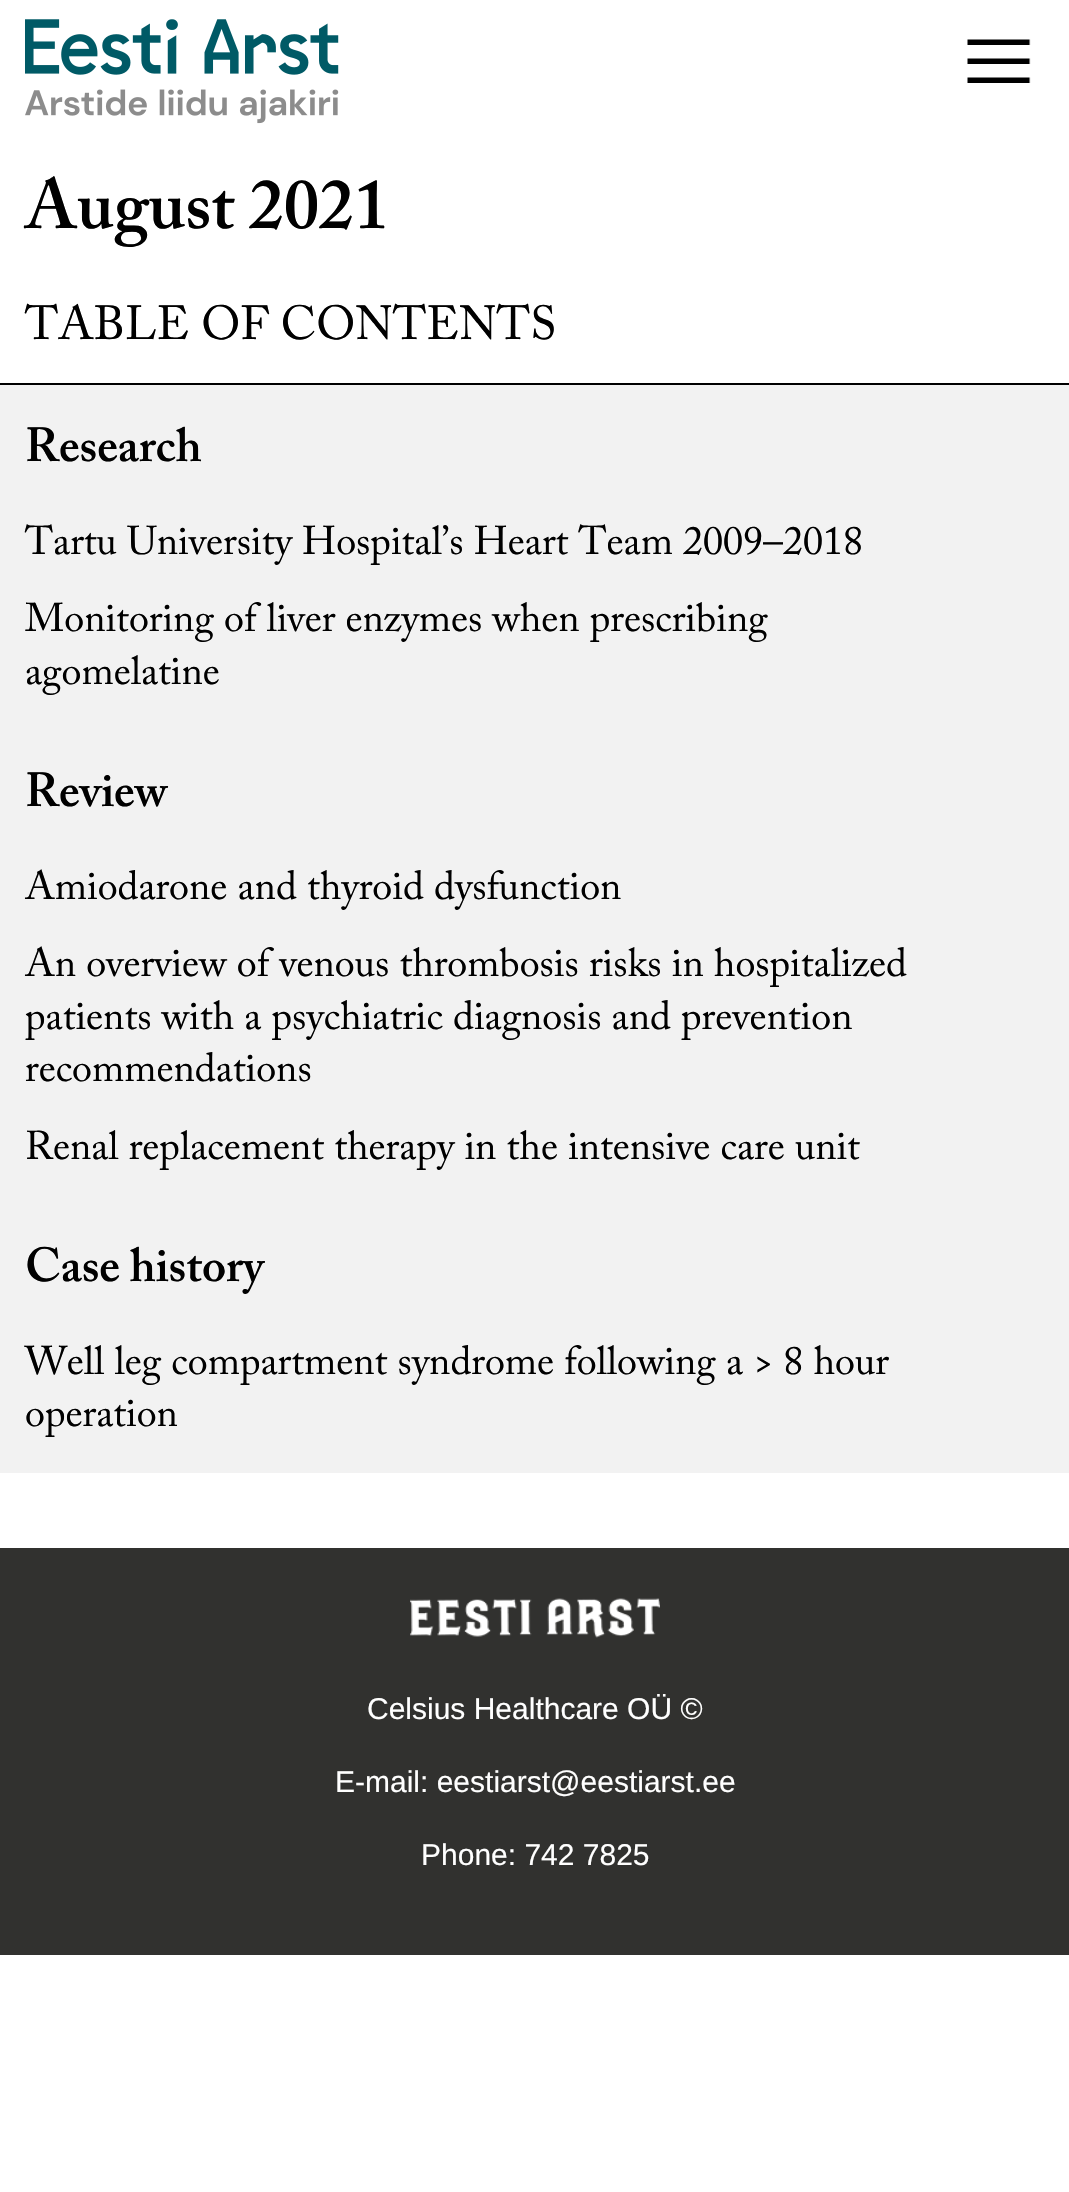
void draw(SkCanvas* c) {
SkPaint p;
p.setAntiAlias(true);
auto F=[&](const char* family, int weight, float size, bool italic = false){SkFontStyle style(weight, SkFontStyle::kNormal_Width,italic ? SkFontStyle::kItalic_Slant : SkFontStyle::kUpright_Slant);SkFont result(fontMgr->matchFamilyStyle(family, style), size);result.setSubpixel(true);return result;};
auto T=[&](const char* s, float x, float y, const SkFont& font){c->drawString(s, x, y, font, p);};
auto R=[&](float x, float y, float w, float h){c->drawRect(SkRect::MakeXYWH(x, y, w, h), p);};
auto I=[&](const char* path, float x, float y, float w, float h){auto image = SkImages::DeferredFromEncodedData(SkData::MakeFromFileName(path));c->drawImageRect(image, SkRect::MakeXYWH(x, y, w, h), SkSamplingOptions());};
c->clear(0xffffffff);
I("1.png",25,19,314,105);
I("2.png",967,39,64,44);
auto f1 = F("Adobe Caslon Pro",600,70);
p.setColor(0xff000000);
T("August 2021",25,228,f1);
R(0,383,1069,2);
auto f2 = F("Adobe Caslon Pro",400,47.5);
T("TABLE OF CONTENTS",25,339,f2);
p.setColor(0xfff2f2f2);
R(0,385,1069,1088);
auto f3 = F("Adobe Caslon Pro",600,47.5);
p.setColor(0xff000000);
T("Research",25,461,f3);
auto f4 = F("Adobe Caslon Pro",400,40);
T("Tartu University Hospital’s Heart Team 2009–2018",25,554,f4);
T("Monitoring of liver enzymes when prescribing",25,631,f4);
T("agomelatine",25,684,f4);
T("Review",25,806,f3);
T("Amiodarone and thyroid dysfunction",25,899,f4);
T("An overview of venous thrombosis risks in hospitalized",25,976,f4);
T("patients with a psychiatric diagnosis and prevention",25,1029,f4);
T("recommendations",25,1081,f4);
T("Renal replacement therapy in the intensive care unit",25,1159,f4);
T("Case history",25,1281,f3);
T("Well leg compartment syndrome following a > 8 hour",25,1374,f4);
T("operation",25,1426,f4);
p.setColor(0xff31312f);
R(0,1548,1069,407);
I("3.png",410,1598,250,40);
auto f5 = F("Liberation Sans",400,30);
p.setColor(0xffffffff);
T("Celsius Healthcare OÜ ©",367,1719,f5);
T("E-mail: eestiarst@eestiarst.ee",335,1792,f5);
T("Phone: 742 7825",421,1865,f5);
}
